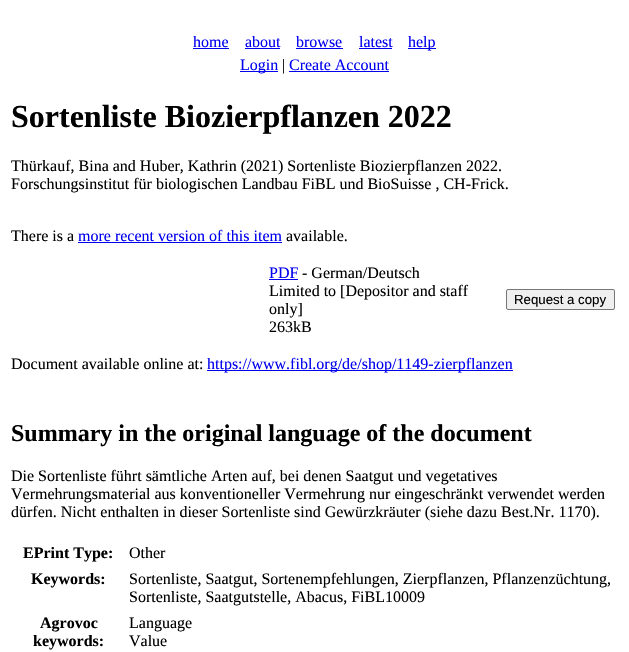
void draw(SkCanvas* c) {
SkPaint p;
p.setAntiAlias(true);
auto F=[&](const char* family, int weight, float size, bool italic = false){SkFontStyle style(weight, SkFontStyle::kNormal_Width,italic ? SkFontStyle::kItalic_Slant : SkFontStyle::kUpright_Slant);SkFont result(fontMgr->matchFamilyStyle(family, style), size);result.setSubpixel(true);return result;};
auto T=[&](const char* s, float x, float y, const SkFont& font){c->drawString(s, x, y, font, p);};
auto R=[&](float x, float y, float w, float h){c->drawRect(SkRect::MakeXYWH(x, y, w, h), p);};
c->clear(0xffffffff);
auto f1 = F("Liberation Serif",400,16);
p.setColor(0xff0000ee);
T("home",193,47,f1);
R(193,48,36,1);
T("about",245,47,f1);
R(245,48,35,1);
T("browse",296,47,f1);
R(296,48,47,1);
T("latest",359,47,f1);
R(359,48,33,1);
R(408,48,28,1);
T("help",408,47,f1);
R(240,71,38,1);
T("Login",240,70,f1);
p.setColor(0xff000000);
T("|",282,70,f1);
p.setColor(0xff0000ee);
T("Create Account",289,70,f1);
R(289,71,100,1);
auto f2 = F("Liberation Serif",700,32);
p.setColor(0xff000000);
T("Sortenliste Biozierpflanzen 2022",11,127,f2);
T("Thürkauf, Bina and Huber, Kathrin (2021) Sortenliste Biozierpflanzen 2022.",11,171,f1);
T("Forschungsinstitut für biologischen Landbau FiBL und BioSuisse , CH-Frick.",11,189,f1);
T("There is a",11,241,f1);
p.setColor(0xff0000ee);
T("more recent version of this item",78,241,f1);
R(78,242,204,1);
p.setColor(0xff000000);
T("available.",286,241,f1);
p.setColor(0xff0000ee);
T("PDF",269,278,f1);
R(269,279,29,1);
p.setColor(0xff000000);
T("- German/Deutsch",302,278,f1);
T("Limited to [Depositor and staff",269,296,f1);
T("only]",269,314,f1);
T("263kB",269,332,f1);
p.setColor(0xffefefef);
c->drawRoundRect(SkRect::MakeXYWH(506.5,289.5,108,20),1.5,1.5,p);
p.setStroke(true);
p.setStrokeWidth(1);
p.setColor(0xff767676);
c->drawRoundRect(SkRect::MakeXYWH(506.5,289.5,108,20),1.5,1.5,p);
auto f3 = F("Liberation Sans",400,13.25);
p.setStroke(false);
p.setColor(0xff000000);
T("Request a copy",514,304,f3);
T("Document available online at:",11,369,f1);
p.setColor(0xff0000ee);
R(207,370,306,1);
T("https://www.fibl.org/de/shop/1149-zierpflanzen",207,369,f1);
auto f4 = F("Liberation Serif",700,24);
p.setColor(0xff000000);
T("Summary in the original language of the document",11,441,f4);
T("Die Sortenliste führt sämtliche Arten auf, bei denen Saatgut und vegetatives",11,481,f1);
T("Vermehrungsmaterial aus konventioneller Vermehrung nur eingeschränkt verwendet werden",11,499,f1);
T("dürfen. Nicht enthalten in dieser Sortenliste sind Gewürzkräuter (siehe dazu Best.Nr. 1170).",11,517,f1);
auto f5 = F("Liberation Serif",700,16);
T("EPrint Type:",23,558,f5);
T("Other",129,558,f1);
T("Keywords:",31,584,f5);
T("Sortenliste, Saatgut, Sortenempfehlungen, Zierpflanzen, Pflanzenzüchtung,",129,584,f1);
T("Sortenliste, Saatgutstelle, Abacus, FiBL10009",129,602,f1);
T("Agrovoc",40,628,f5);
T("keywords:",33,646,f5);
T("Language",129,628,f1);
T("Value",129,646,f1);
}
